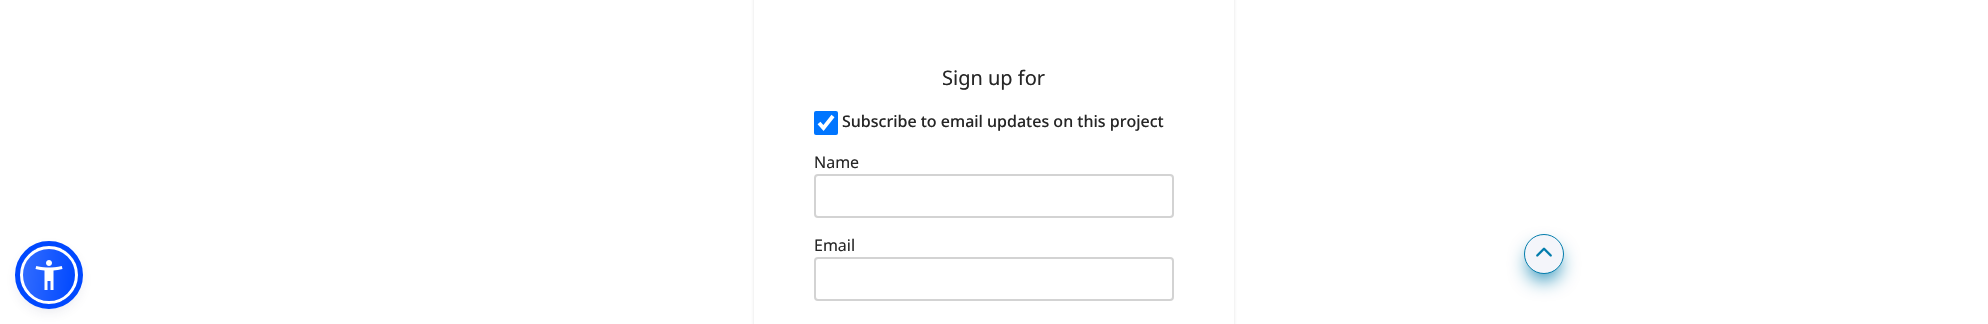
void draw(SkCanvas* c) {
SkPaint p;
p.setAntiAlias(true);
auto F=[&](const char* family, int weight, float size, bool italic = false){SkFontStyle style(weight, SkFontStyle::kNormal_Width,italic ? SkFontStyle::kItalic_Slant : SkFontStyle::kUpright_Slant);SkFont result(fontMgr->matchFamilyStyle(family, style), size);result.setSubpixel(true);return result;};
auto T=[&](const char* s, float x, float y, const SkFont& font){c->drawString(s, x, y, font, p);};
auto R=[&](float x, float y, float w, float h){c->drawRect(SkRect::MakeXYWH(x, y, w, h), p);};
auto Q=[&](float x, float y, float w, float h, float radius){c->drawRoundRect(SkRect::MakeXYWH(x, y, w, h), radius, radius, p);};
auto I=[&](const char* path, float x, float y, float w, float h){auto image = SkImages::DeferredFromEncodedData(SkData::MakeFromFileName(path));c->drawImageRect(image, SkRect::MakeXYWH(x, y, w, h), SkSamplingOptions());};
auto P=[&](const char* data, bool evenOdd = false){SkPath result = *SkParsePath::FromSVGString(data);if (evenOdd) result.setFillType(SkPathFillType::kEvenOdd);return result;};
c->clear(0xffffffff);
c->save();
c->clipPath(P("M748 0h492v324h-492zm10-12h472c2 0 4 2 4 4v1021c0 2-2 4-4 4h-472c-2 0-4-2-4-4v-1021c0-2 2-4 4-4z",true),true);
p.setColor(0x1f000000);
p.setMaskFilter(SkMaskFilter::MakeBlur(kNormal_SkBlurStyle, 1.5));
c->drawRoundRect(SkRect::MakeXYWH(754,-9,480,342),4,4,p);
p.setMaskFilter(nullptr);
c->restore();
auto f1 = F("Noto Sans",400,20);
p.setColor(0xff262626);
T("Sign up for",942,85,f1);
p.setColor(0xff0075ff);
Q(814,111,24,24,2);
p.setStroke(true);
p.setStrokeWidth(3.8);
p.setColor(0xffffffff);
c->drawPath(P("M819 123l4.5 5l9.5-12"),p);
auto f2 = F("Noto Sans",500,16);
p.setStroke(false);
p.setColor(0xff262626);
T("Subscribe to email updates on this project",842,127,f2);
auto f3 = F("Noto Sans",400,16);
T("Name",814,168,f3);
p.setStroke(true);
p.setStrokeWidth(2);
p.setColor(0xffd3d3d3);
c->drawRoundRect(SkRect::MakeXYWH(815,175,358,42),3,3,p);
p.setStroke(false);
p.setColor(0xff262626);
T("Email",814,251,f3);
p.setStroke(true);
p.setColor(0xffd3d3d3);
c->drawRoundRect(SkRect::MakeXYWH(815,258,358,42),3,3,p);
p.setStroke(false);
p.setColor(0xff027cac);
p.setMaskFilter(SkMaskFilter::MakeBlur(kNormal_SkBlurStyle, 10));
c->drawRoundRect(SkRect::MakeXYWH(1529,249,30,30),15,15,p);
p.setMaskFilter(nullptr);
p.setColor(0xfff4f5fa);
c->drawCircle(1544,254,19.5,p);
p.setStroke(true);
p.setStrokeWidth(1);
p.setColor(0xff027cac);
c->drawCircle(1544,254,19.5,p);
I("1.png",1536,247,16,10);
p.setStroke(false);
p.setColor(0x335d6494);
p.setMaskFilter(SkMaskFilter::MakeBlur(kNormal_SkBlurStyle, 2));
c->drawRoundRect(SkRect::MakeXYWH(20,248,58,58),29,29,p);
p.setMaskFilter(nullptr);
p.setColor(0x26252c61);
p.setMaskFilter(SkMaskFilter::MakeBlur(kNormal_SkBlurStyle, 7.5));
c->drawRoundRect(SkRect::MakeXYWH(20,251,58,58),29,29,p);
p.setMaskFilter(nullptr);
c->save();
c->clipPath(P("M49 246c16 0 29 13 29 29c0 16-13 29-29 29c-16 0-29-13-29-29c0-16 13-29 29-29z"),true);
{
const SkColor colors[] = {0xff326cff,0xff0048ff};
const float stops[] = {0,1};
const SkPoint ends[] = {{21,272}, {77,278}};
p.setShader(SkGradientShader::MakeLinear(ends, colors, stops, 2, SkTileMode::kClamp));
p.setAlpha(255);
}
R(23,249,52,52);
c->restore();
p.setStroke(true);
p.setStrokeWidth(3);
p.setShader(nullptr);
p.setColor(0xffffffff);
c->drawCircle(49,275,27.5,p);
p.setStrokeWidth(5);
p.setColor(0xff0048ff);
c->drawCircle(49,275,31.5,p);
I("2.png",35,260,28,30);
}
